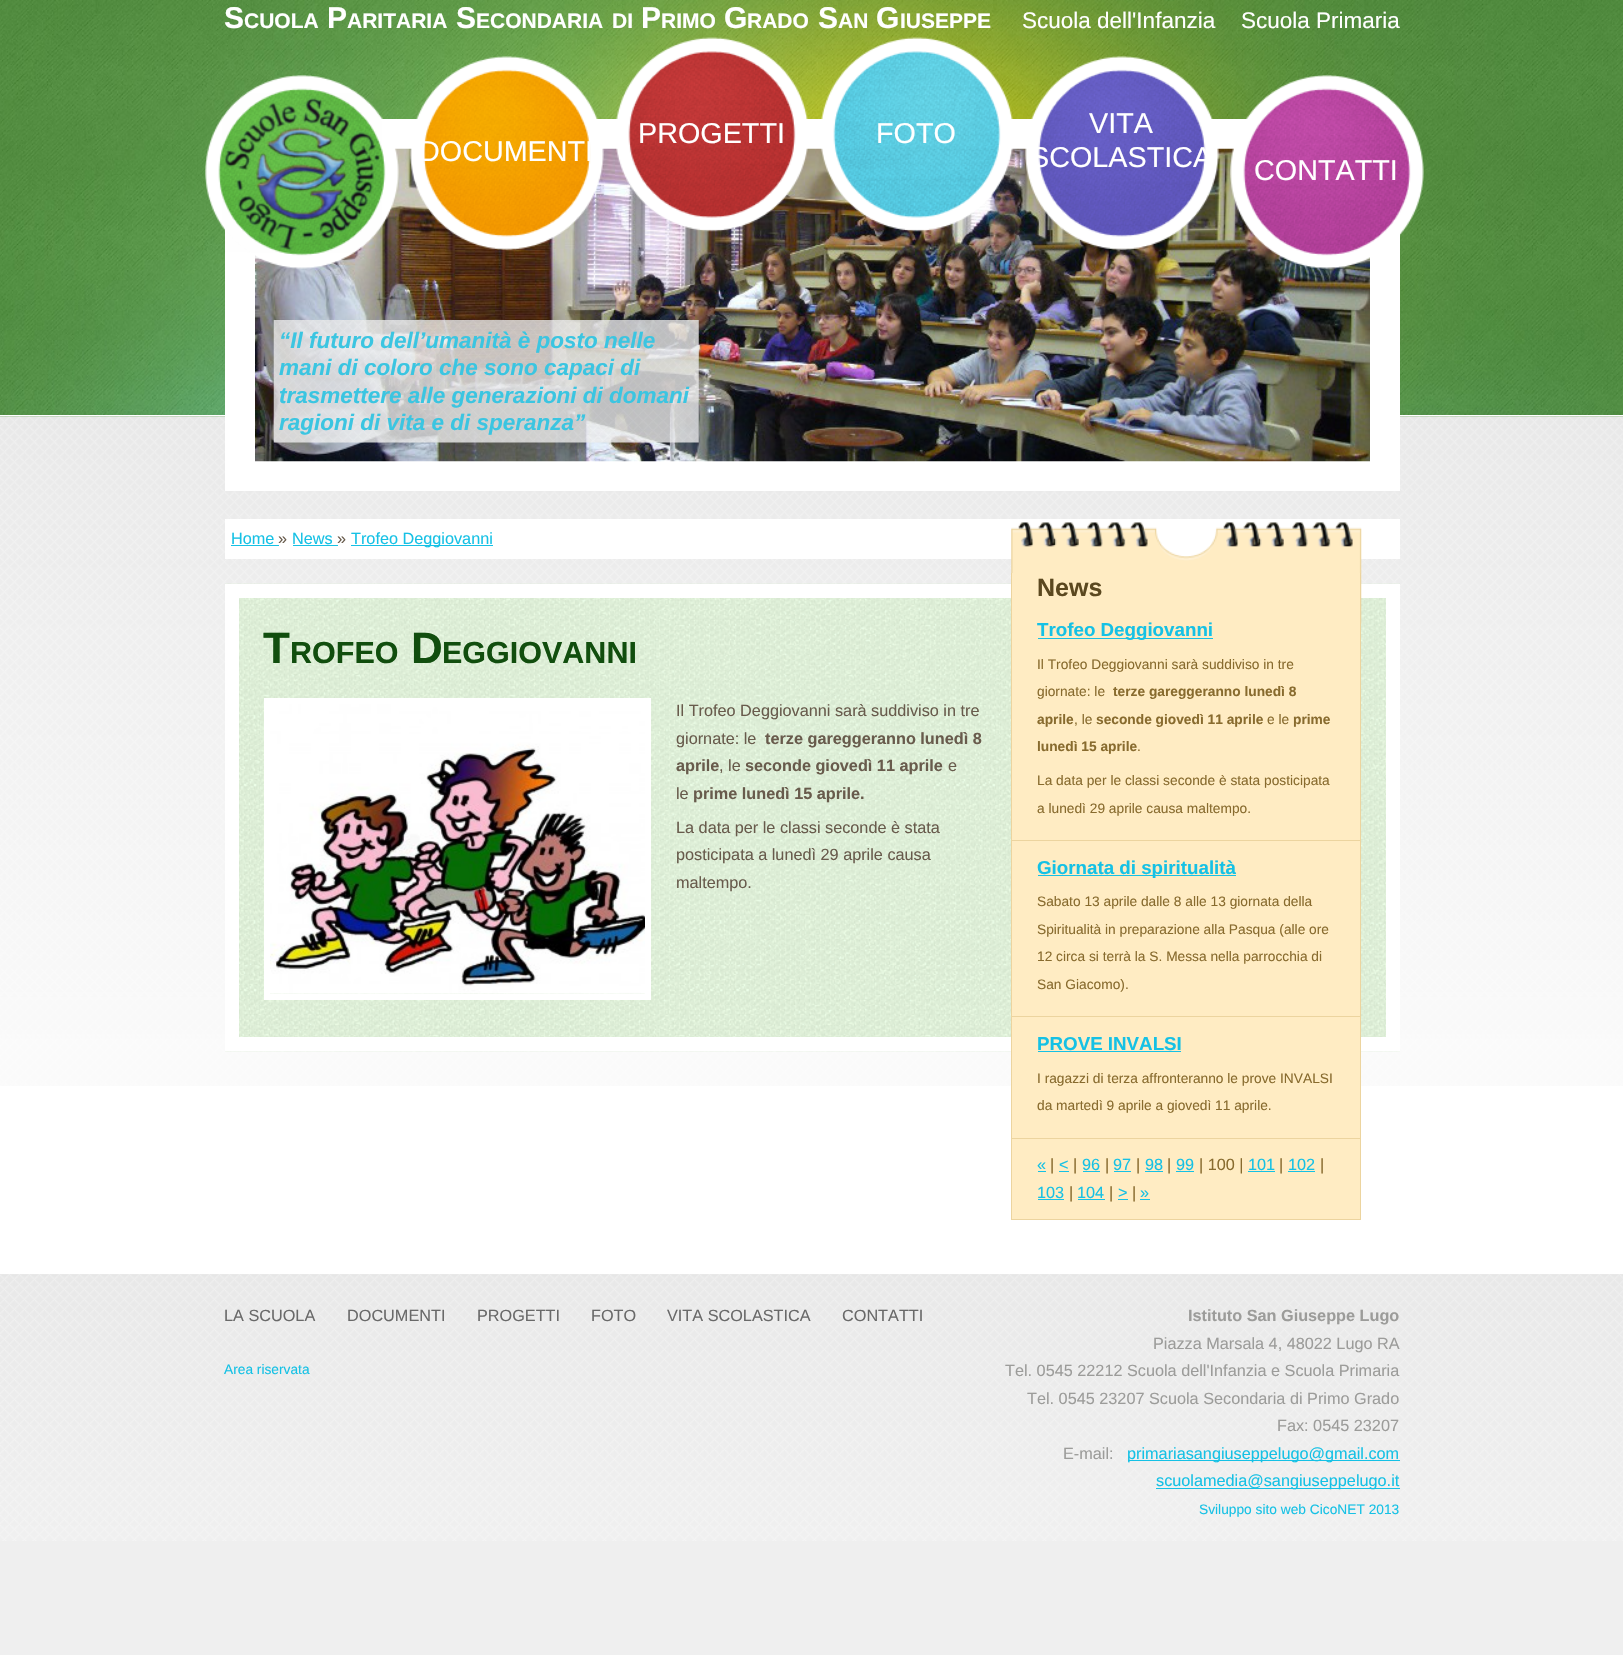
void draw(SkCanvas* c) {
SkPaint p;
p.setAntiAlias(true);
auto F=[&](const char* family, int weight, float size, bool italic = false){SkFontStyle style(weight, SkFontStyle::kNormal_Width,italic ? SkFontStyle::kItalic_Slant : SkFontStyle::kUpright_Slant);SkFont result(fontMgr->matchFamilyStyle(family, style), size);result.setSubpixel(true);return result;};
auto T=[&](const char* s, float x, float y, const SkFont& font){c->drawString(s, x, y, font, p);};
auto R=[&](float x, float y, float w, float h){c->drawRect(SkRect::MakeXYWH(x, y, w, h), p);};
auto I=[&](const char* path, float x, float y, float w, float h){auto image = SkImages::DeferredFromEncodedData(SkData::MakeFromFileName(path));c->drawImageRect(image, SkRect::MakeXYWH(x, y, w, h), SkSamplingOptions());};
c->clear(0xffefefef);
p.setColor(0xffffffff);
R(0,415,1623,859);
I("11.png",0,416,1623,670);
I("1.png",0,416,1623,1);
I("2.png",0,0,1623,415);
auto f1 = F("Liberation Sans",700,30);
T("S",224,28,f1);
auto f2 = F("Liberation Sans",700,21);
T("CUOLA",244,28,f2);
T("P",327,28,f1);
T("ARITARIA",347,28,f2);
T("S",456,28,f1);
T("ECONDARIA",476,28,f2);
T("DI",612,28,f2);
T("P",641,28,f1);
T("RIMO",661,28,f2);
T("G",724,28,f1);
T("RADO",747,28,f2);
T("S",818,28,f1);
T("AN",838,28,f2);
T("G",876,28,f1);
T("IUSEPPE",900,28,f2);
auto f3 = F("Liberation Sans",400,22.5);
T("Scuola dell'Infanzia",1022,28,f3);
T("Scuola Primaria",1241,28,f3);
p.setStroke(true);
p.setStrokeWidth(30);
c->drawRect(SkRect::MakeXYWH(240,134,1145,342),p);
I("9.png",255,148,1115,314);
I("3.png",205,75,194,194);
I("4.png",616,37,192,195);
auto f4 = F("Liberation Sans",400,28.75);
p.setStroke(false);
T("PROGETTI",638,143,f4);
I("5.png",821,37,192,195);
T("FOTO",876,143,f4);
I("6.png",1025,56,194,194);
T("VITA",1089,133,f4);
T("SCOLASTICA",1030,167,f4);
I("7.png",410,56,194,194);
T("DOCUMENTI",419,161,f4);
I("8.png",1230,75,194,194);
T("CONTATTI",1254,180,f4);
I("10.png",273,320,426,123);
auto f5 = F("Liberation Sans",700,22.5,true);
p.setColor(0xff3bc5e1);
T("“Il futuro dell’umanità è posto nelle",279,348,f5);
T("mani di coloro che sono capaci di",279,375,f5);
T("trasmettere alle generazioni di domani",279,403,f5);
T("ragioni di vita e di speranza”",279,430,f5);
p.setColor(0xffffffff);
R(225,519,1175,40);
auto f6 = F("Liberation Sans",400,16.25);
p.setColor(0xff15c1e5);
T("Home",231,544,f6);
R(231,545,48,1);
p.setColor(0xff685b4c);
T("»",278,544,f6);
p.setColor(0xff15c1e5);
T("News",292,544,f6);
R(293,545,45,1);
p.setColor(0xff685b4c);
T("»",337,544,f6);
p.setColor(0xff15c1e5);
R(351,545,142,1);
T("Trofeo Deggiovanni",351,544,f6);
I("12.png",225,583,1175,469);
p.setStroke(true);
p.setStrokeWidth(14);
p.setColor(0xffffffff);
c->drawRect(SkRect::MakeXYWH(232,591,1161,453),p);
auto f7 = F("Liberation Sans",700,44);
p.setStroke(false);
p.setColor(0xff114e0e);
T("T",263,663,f7);
auto f8 = F("Liberation Sans",700,30.5);
T("ROFEO",290,663,f8);
T("D",411,663,f7);
T("EGGIOVANNI",442,663,f8);
p.setStroke(true);
p.setStrokeWidth(6);
p.setColor(0xffffffff);
c->drawRect(SkRect::MakeXYWH(267,701,381,296),p);
I("13.png",270,704,375,290);
p.setStroke(false);
p.setColor(0xff685b4c);
T("Il Trofeo Deggiovanni sarà suddiviso in tre",676,716,f6);
T("giornate: le",676,744,f6);
auto f9 = F("Liberation Sans",700,16.25);
T("terze gareggeranno lunedì 8",765,744,f9);
T("aprile",676,771,f9);
T(", le",719,771,f6);
T("seconde giovedì 11 aprile",745,771,f9);
T("e",948,771,f6);
T("le",676,799,f6);
T("prime lunedì 15 aprile.",693,799,f9);
T("La data per le classi seconde è stata",676,833,f6);
T("posticipata a lunedì 29 aprile causa",676,860,f6);
T("maltempo.",676,888,f6);
I("14.png",1011,522,351,102);
p.setColor(0xffffecc3);
R(1012,573,348,267);
p.setColor(0xffecd49f);
R(1360,573,1,647);
R(1011,573,1,31);
auto f10 = F("Liberation Sans",700,25);
p.setColor(0xff5b481f);
T("News",1037,596,f10);
p.setColor(0xffecd49f);
R(1011,840,350,1);
R(1011,604,1,237);
p.setColor(0xff15c1e5);
R(1038,638,175,1);
auto f11 = F("Liberation Sans",700,18.75);
T("Trofeo Deggiovanni",1037,636,f11);
auto f12 = F("Liberation Sans",400,13.75);
p.setColor(0xff886b2e);
T("Il Trofeo Deggiovanni sarà suddiviso in tre",1037,669,f12);
T("giornate: le",1037,696,f12);
auto f13 = F("Liberation Sans",700,13.75);
T("terze gareggeranno lunedì 8",1113,696,f13);
T("aprile",1037,724,f13);
T(", le",1074,724,f12);
T("seconde giovedì 11 aprile",1096,724,f13);
T("e le",1267,724,f12);
T("prime",1293,724,f13);
T("lunedì 15 aprile",1037,751,f13);
T(".",1137,751,f12);
T("La data per le classi seconde è stata posticipata",1037,785,f12);
T("a lunedì 29 aprile causa maltempo.",1037,813,f12);
p.setColor(0xffffecc3);
R(1012,841,348,297);
p.setColor(0xffecd49f);
R(1011,1016,350,1);
R(1011,841,1,177);
p.setColor(0xff15c1e5);
R(1038,875,198,1);
T("Giornata di spiritualità",1037,874,f11);
p.setColor(0xff886b2e);
T("Sabato 13 aprile dalle 8 alle 13 giornata della",1037,906,f12);
T("Spiritualità in preparazione alla Pasqua (alle ore",1037,934,f12);
T("12 circa si terrà la S. Messa nella parrocchia di",1037,961,f12);
T("San Giacomo).",1037,989,f12);
p.setColor(0xffecd49f);
R(1011,1138,350,1);
R(1011,1018,1,121);
p.setColor(0xff15c1e5);
T("PROVE INVALSI",1037,1050,f11);
R(1038,1051,143,1);
p.setColor(0xff886b2e);
T("I ragazzi di terza affronteranno le prove INVALSI",1037,1083,f12);
T("da martedì 9 aprile a giovedì 11 aprile.",1037,1110,f12);
p.setColor(0xffffecc3);
R(1012,1139,348,80);
p.setColor(0xffecd49f);
R(1011,1219,350,1);
R(1011,1139,1,81);
p.setColor(0xff15c1e5);
T("«",1037,1170,f6);
R(1038,1171,8,1);
p.setColor(0xff886b2e);
T("|",1050,1170,f6);
p.setColor(0xff15c1e5);
T("<",1059,1170,f6);
R(1059,1171,10,1);
p.setColor(0xff886b2e);
T("|",1073,1170,f6);
p.setColor(0xff15c1e5);
T("96",1082,1170,f6);
R(1083,1171,17,1);
p.setColor(0xff886b2e);
T("|",1105,1170,f6);
p.setColor(0xff15c1e5);
T("97",1113,1170,f6);
R(1114,1171,17,1);
p.setColor(0xff886b2e);
T("|",1136,1170,f6);
p.setColor(0xff15c1e5);
T("98",1145,1170,f6);
R(1145,1171,18,1);
p.setColor(0xff886b2e);
T("|",1167,1170,f6);
p.setColor(0xff15c1e5);
T("99",1176,1170,f6);
R(1176,1171,18,1);
p.setColor(0xff886b2e);
T("| 100 |",1199,1170,f6);
p.setColor(0xff15c1e5);
T("101",1248,1170,f6);
R(1248,1171,27,1);
p.setColor(0xff886b2e);
T("|",1279,1170,f6);
p.setColor(0xff15c1e5);
T("102",1288,1170,f6);
R(1288,1171,27,1);
p.setColor(0xff886b2e);
T("|",1320,1170,f6);
p.setColor(0xff15c1e5);
T("103",1037,1198,f6);
R(1038,1199,26,1);
p.setColor(0xff886b2e);
T("|",1069,1198,f6);
p.setColor(0xff15c1e5);
T("104",1077,1198,f6);
R(1078,1199,27,1);
p.setColor(0xff886b2e);
T("|",1109,1198,f6);
p.setColor(0xff15c1e5);
T(">",1118,1198,f6);
R(1118,1199,10,1);
p.setColor(0xff886b2e);
T("|",1132,1198,f6);
p.setColor(0xff15c1e5);
T("»",1140,1198,f6);
R(1140,1199,10,1);
I("15.png",0,1274,1623,267);
p.setColor(0xff696969);
T("LA SCUOLA",224,1321,f6);
T("DOCUMENTI",347,1321,f6);
T("PROGETTI",477,1321,f6);
T("FOTO",591,1321,f6);
T("VITA SCOLASTICA",667,1321,f6);
T("CONTATTI",842,1321,f6);
p.setColor(0xff9c9c9a);
T("Istituto San Giuseppe Lugo",1188,1321,f9);
T("Piazza Marsala 4, 48022 Lugo RA",1153,1349,f6);
T("Tel. 0545 22212 Scuola dell'Infanzia e Scuola Primaria",1005,1376,f6);
T("Tel. 0545 23207 Scuola Secondaria di Primo Grado",1027,1404,f6);
T("Fax: 0545 23207",1277,1431,f6);
T("E-mail:",1063,1459,f6);
p.setColor(0xff15c1e5);
R(1128,1460,272,1);
T("primariasangiuseppelugo@gmail.com",1127,1459,f6);
R(1156,1488,244,1);
T("scuolamedia@sangiuseppelugo.it",1156,1486,f6);
T("Sviluppo sito web CicoNET 2013",1199,1514,f12);
T("Area riservata",224,1374,f12);
}
